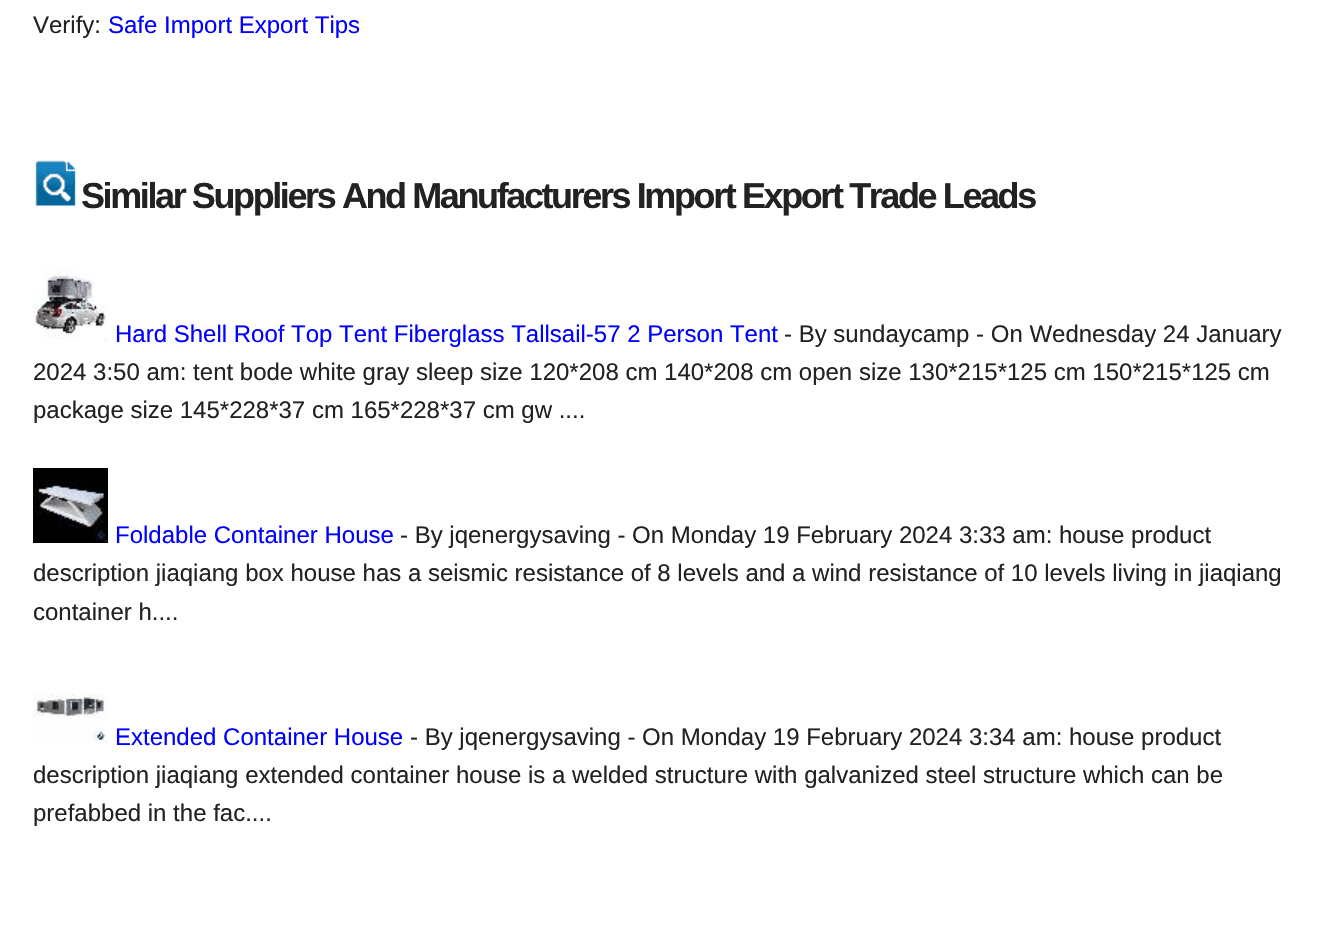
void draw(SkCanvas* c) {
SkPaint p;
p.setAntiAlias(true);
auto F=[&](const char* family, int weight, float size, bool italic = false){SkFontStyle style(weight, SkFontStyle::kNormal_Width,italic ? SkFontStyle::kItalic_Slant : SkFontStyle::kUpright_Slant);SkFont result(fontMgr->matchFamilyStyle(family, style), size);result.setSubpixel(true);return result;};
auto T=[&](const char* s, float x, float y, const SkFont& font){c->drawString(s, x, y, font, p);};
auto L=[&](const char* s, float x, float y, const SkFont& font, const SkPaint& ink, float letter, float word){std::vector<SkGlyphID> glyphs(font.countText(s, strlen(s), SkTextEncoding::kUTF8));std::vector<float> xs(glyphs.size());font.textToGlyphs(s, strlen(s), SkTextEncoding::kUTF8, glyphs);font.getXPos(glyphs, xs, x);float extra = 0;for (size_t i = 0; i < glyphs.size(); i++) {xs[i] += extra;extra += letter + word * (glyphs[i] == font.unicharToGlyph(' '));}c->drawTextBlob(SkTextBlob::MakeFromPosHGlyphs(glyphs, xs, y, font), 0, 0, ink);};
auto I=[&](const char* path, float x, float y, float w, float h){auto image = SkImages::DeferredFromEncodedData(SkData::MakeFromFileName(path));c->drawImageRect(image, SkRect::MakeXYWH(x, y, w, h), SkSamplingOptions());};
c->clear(0xffffffff);
auto f1 = F("Liberation Sans",400,24);
p.setColor(0xff222222);
T("Verify:",33,33,f1);
p.setColor(0xff0000ff);
T("Safe Import Export Tips",108,33,f1);
I("1.png",35,160,41,46);
auto f2 = F("Liberation Sans",700,36);
p.setColor(0xff222222);
L("Similar Suppliers And Manufacturers Import Export Trade Leads",81,208,f2,p,-2.4,0);
I("2.png",33,267,75,74);
p.setColor(0xff0000ff);
T("Hard Shell Roof Top Tent Fiberglass Tallsail-57 2 Person Tent",115,342,f1);
p.setColor(0xff222222);
T("- By sundaycamp - On Wednesday 24 January",784,342,f1);
T("2024 3:50 am: tent bode white gray sleep size 120*208 cm 140*208 cm open size 130*215*125 cm 150*215*125 cm",33,380,f1);
T("package size 145*228*37 cm 165*228*37 cm gw ....",33,418,f1);
I("3.png",33,468,75,75);
p.setColor(0xff0000ff);
T("Foldable Container House",115,543,f1);
p.setColor(0xff222222);
T("- By jqenergysaving - On Monday 19 February 2024 3:33 am: house product",400,543,f1);
T("description jiaqiang box house has a seismic resistance of 8 levels and a wind resistance of 10 levels living in jiaqiang",33,581,f1);
T("container h....",33,620,f1);
I("4.png",33,693,74,51);
p.setColor(0xff0000ff);
T("Extended Container House",115,745,f1);
p.setColor(0xff222222);
T("- By jqenergysaving - On Monday 19 February 2024 3:34 am: house product",410,745,f1);
T("description jiaqiang extended container house is a welded structure with galvanized steel structure which can be",33,783,f1);
T("prefabbed in the fac....",33,821,f1);
}
